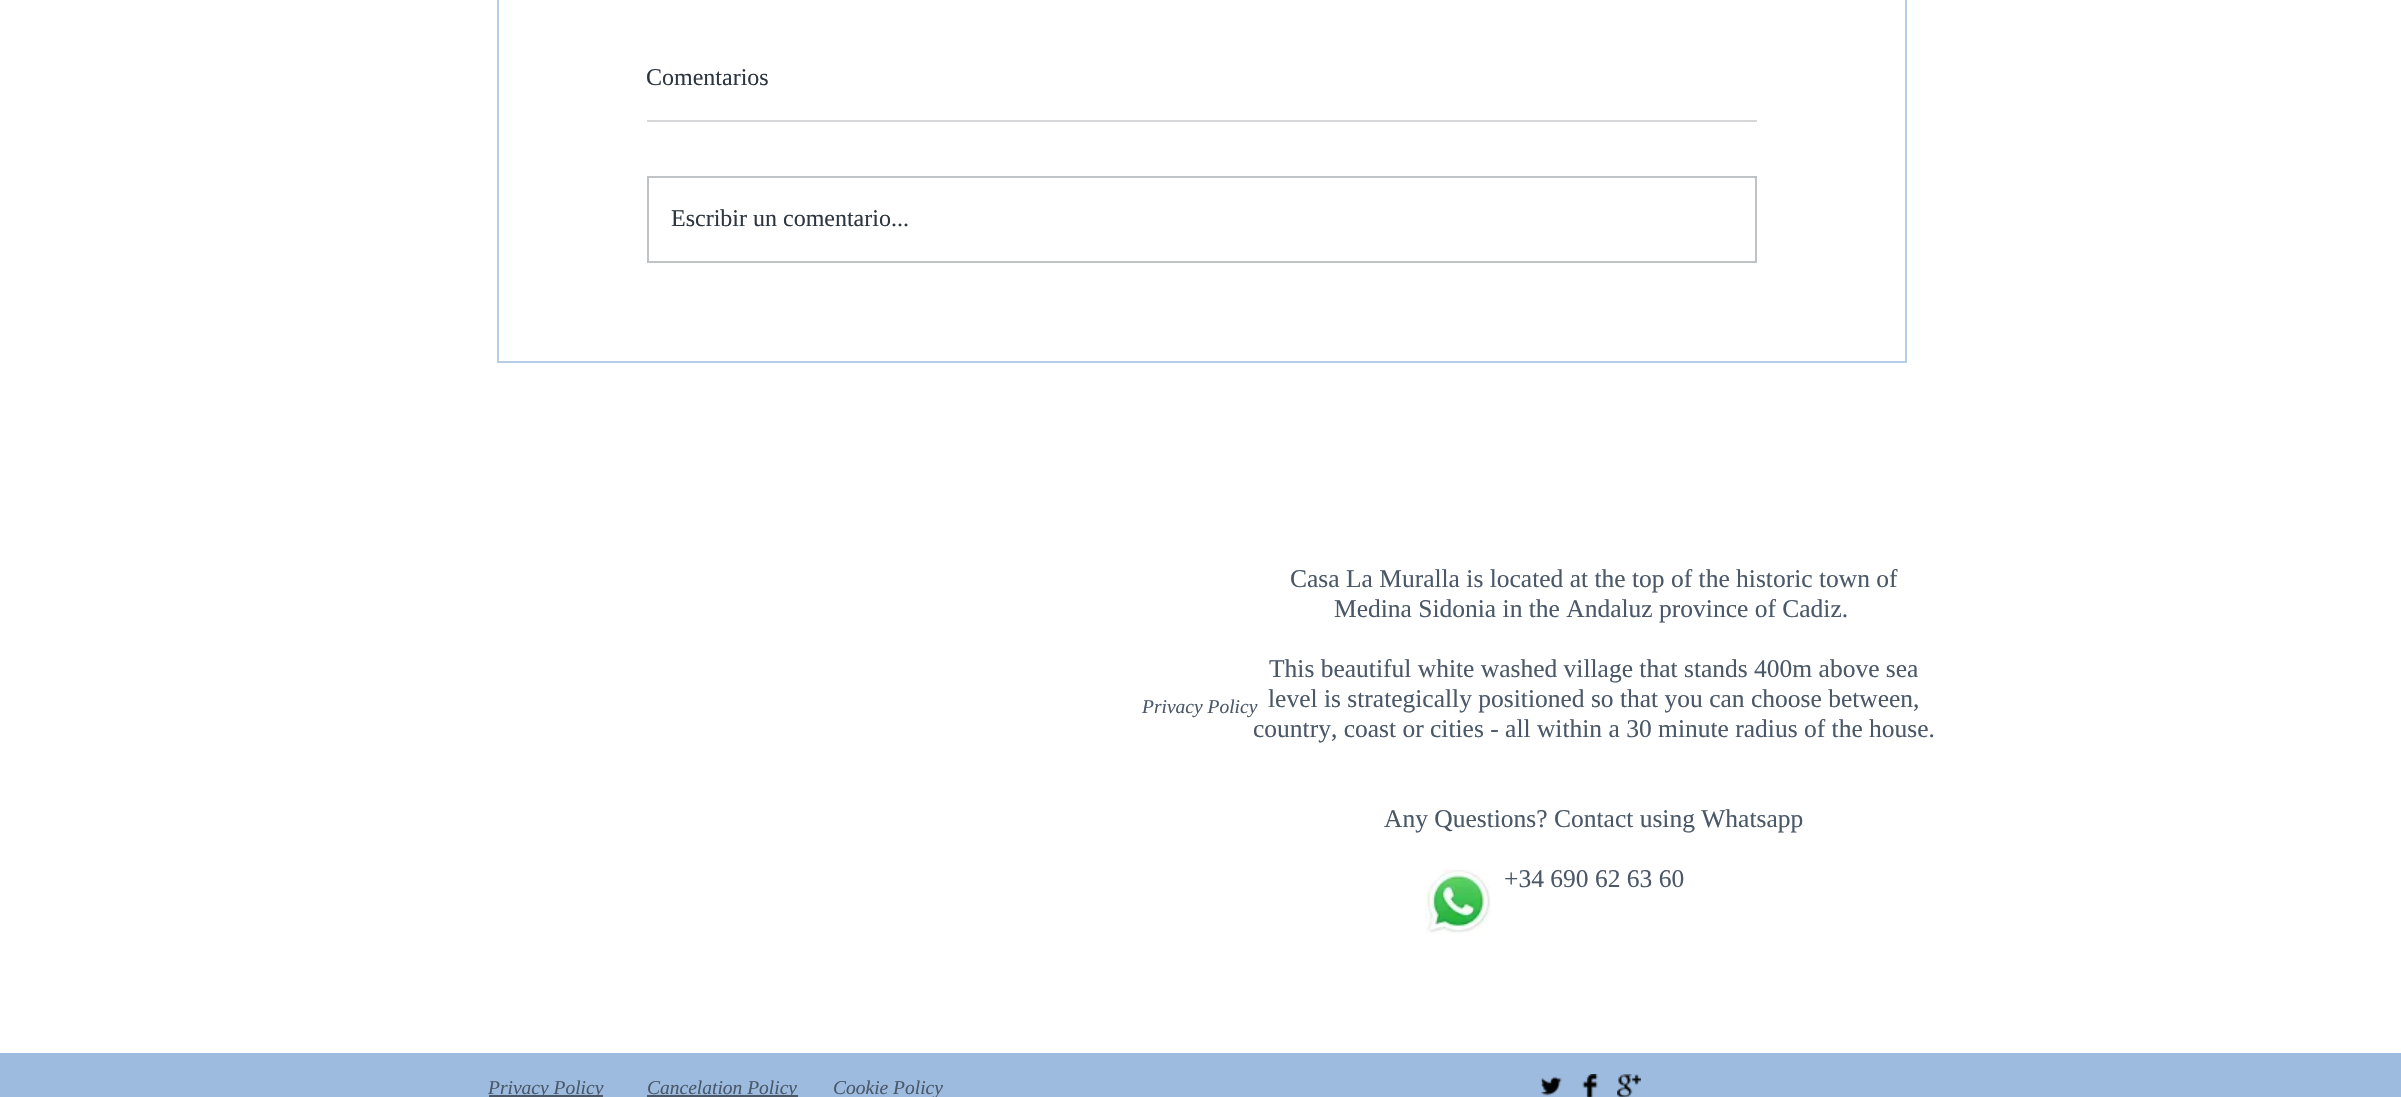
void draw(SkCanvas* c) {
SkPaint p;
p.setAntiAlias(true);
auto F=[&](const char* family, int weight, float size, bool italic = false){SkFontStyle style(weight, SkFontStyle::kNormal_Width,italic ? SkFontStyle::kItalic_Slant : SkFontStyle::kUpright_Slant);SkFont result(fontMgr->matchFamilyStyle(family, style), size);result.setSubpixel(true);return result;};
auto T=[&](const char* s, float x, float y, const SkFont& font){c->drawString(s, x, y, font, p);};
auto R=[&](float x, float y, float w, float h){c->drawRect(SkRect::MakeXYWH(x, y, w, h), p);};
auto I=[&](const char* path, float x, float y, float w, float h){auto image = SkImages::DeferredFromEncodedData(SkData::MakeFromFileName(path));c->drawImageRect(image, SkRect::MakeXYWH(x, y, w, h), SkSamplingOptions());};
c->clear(0xffffffff);
p.setStroke(true);
p.setStrokeWidth(2);
p.setColor(0xffb6cce7);
c->drawRect(SkRect::MakeXYWH(498,-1,1408,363),p);
auto f1 = F("Liberation Serif",400,24);
p.setStroke(false);
p.setColor(0xff2e3741);
T("Comentarios",646,85,f1);
p.setColor(0xffd5d7d9);
R(647,120,1110,2);
p.setStroke(true);
p.setColor(0xffc0c3c6);
c->drawRect(SkRect::MakeXYWH(648,177,1108,85),p);
p.setStroke(false);
p.setColor(0xff2e3741);
T("Escribir un comentario...",671,226,f1);
auto f2 = F("Liberation Serif",400,19.5,true);
p.setColor(0xff4a5868);
T("Privacy Policy",1142,713,f2);
auto f3 = F("Liberation Serif",400,25.5);
T("Casa La Muralla is located at the top of the historic town of",1290,587,f3);
T("Medina Sidonia in the Andaluz province of Cadiz.",1334,617,f3);
T("This beautiful white washed village that stands 400m above sea",1269,677,f3);
T("level is strategically positioned so that you can choose between,",1268,707,f3);
T("country, coast or cities - all within a 30 minute radius of the house.",1253,737,f3);
T("Any Questions? Contact using Whatsapp",1384,827,f3);
T("+34 690 62 63 60",1504,887,f3);
I("1.png",1425,869,66,65);
p.setColor(0xff9dbbdf);
R(0,1053,2401,44);
p.setColor(0xff4a5868);
R(489,1095,114,2);
T("Privacy Policy",488,1094,f2);
R(647,1095,151,2);
T("Cancelation Policy",647,1094,f2);
T("Cookie Policy",833,1094,f2);
I("2.png",1540,1076,22,20);
I("3.png",1582,1074,16,23);
I("4.png",1617,1074,24,23);
}
